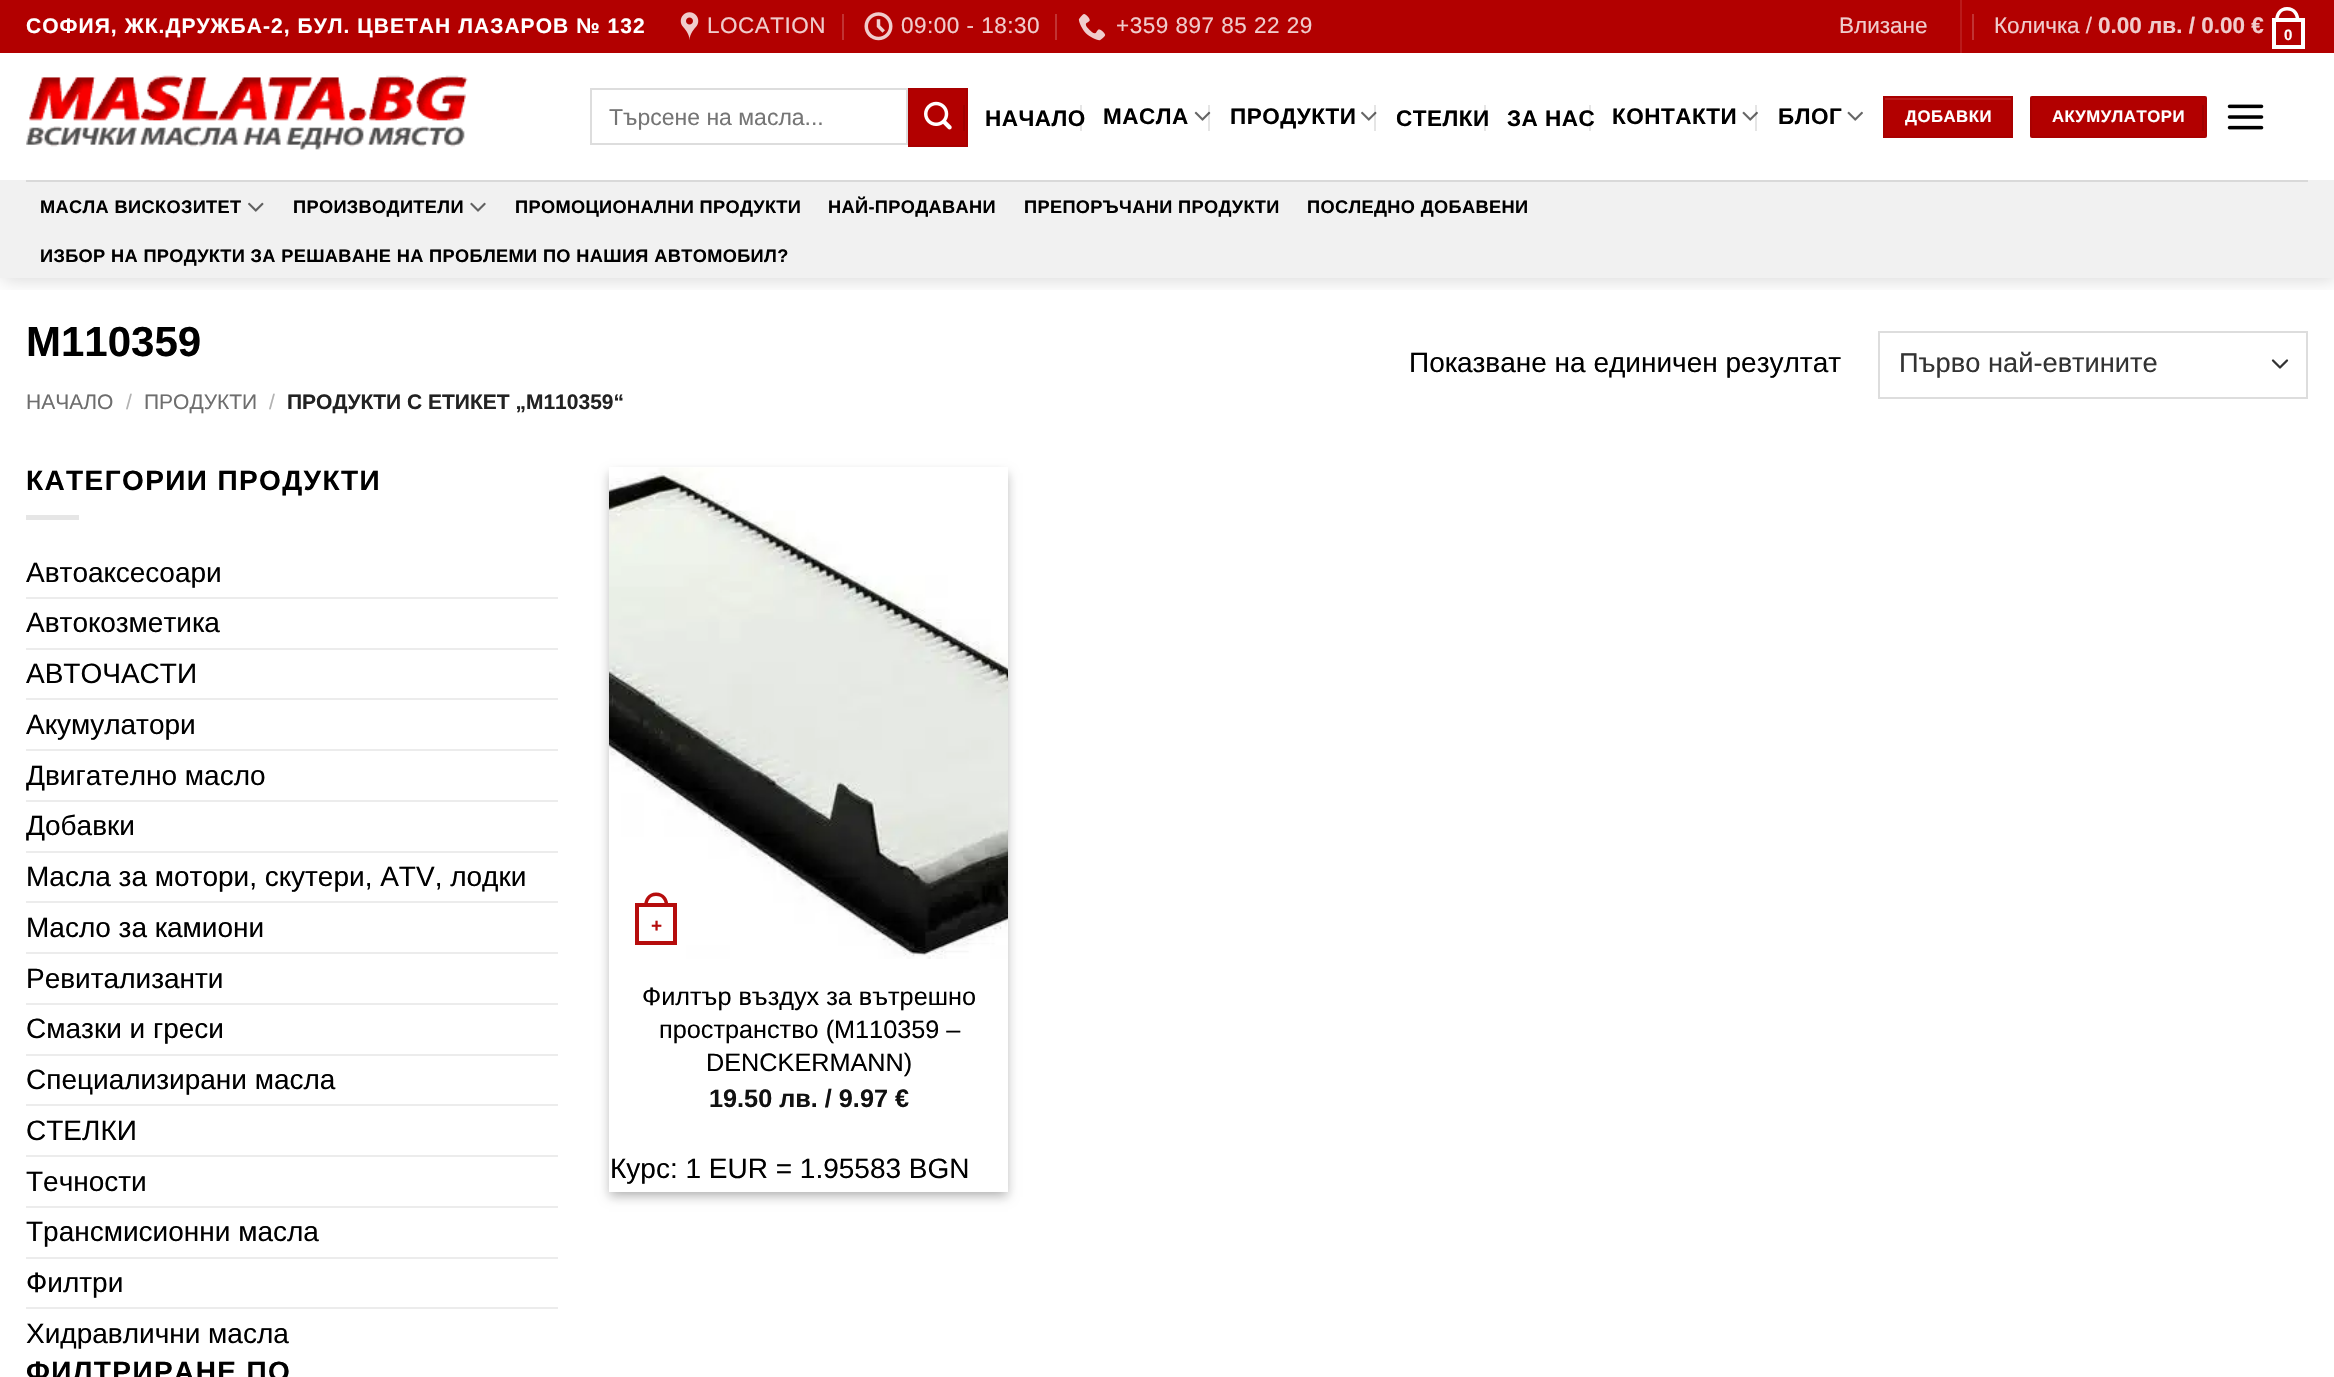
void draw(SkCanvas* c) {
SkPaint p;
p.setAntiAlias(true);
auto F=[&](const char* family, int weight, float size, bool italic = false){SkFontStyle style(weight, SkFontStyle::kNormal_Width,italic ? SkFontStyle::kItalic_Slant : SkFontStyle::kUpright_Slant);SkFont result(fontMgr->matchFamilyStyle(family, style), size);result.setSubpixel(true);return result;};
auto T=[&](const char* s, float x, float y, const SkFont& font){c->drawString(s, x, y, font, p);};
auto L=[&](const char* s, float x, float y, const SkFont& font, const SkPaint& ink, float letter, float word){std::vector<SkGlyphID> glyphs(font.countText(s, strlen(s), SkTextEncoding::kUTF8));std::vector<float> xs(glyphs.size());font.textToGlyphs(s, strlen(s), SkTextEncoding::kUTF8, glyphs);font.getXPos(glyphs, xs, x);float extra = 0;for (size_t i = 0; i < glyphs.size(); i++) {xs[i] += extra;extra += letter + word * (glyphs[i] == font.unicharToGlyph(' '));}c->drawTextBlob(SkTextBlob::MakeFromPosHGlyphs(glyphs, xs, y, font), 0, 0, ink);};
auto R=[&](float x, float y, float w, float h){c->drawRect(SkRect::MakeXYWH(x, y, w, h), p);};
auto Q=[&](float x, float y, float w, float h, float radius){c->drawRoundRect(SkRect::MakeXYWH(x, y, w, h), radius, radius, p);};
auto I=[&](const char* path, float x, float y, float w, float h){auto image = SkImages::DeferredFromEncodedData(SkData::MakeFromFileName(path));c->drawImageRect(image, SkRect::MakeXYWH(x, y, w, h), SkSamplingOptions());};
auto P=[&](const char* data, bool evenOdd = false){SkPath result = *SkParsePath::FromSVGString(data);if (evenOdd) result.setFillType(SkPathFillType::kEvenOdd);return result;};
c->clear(0xffffffff);
c->save();
c->clipRect(SkRect::MakeXYWH(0,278,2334,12));
p.setColor(0x26000000);
p.setMaskFilter(SkMaskFilter::MakeBlur(kNormal_SkBlurStyle, 9));
c->drawRect(SkRect::MakeXYWH(2,2,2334,278),p);
p.setMaskFilter(nullptr);
c->restore();
p.setColor(0xffb20000);
R(0,0,2334,53);
auto f1 = F("Liberation Sans",700,21);
p.setColor(0xffffffff);
L("СОФИЯ, ЖК.ДРУЖБА-2, БУЛ. ЦВЕТАН ЛАЗАРОВ № 132",26,33,f1,p,1.05,0);
I("1.png",680,12,19,28);
auto f2 = F("Liberation Sans",400,22.5);
p.setColor(0xfff0cccc);
L("LOCATION",707,33,f2,p,.5,0);
p.setColor(0xffc13333);
R(842,14,2,26);
I("2.png",864,12,29,29);
p.setColor(0xfff0cccc);
L("09:00 - 18:30",901,33,f2,p,.5,0);
p.setColor(0xffc13333);
R(1055,14,2,26);
I("3.png",1078,14,28,27);
p.setColor(0xfff0cccc);
L("+359 897 85 22 29",1116,33,f2,p,.5,0);
T("Влизане",1839,33,f2);
p.setColor(0xffba1a1a);
R(1960,0,2,53);
p.setColor(0xffc13333);
R(1972,14,2,26);
p.setColor(0xfff0cccc);
T("Количка /",1994,33,f2);
auto f3 = F("Liberation Sans",700,22.5);
T("0.00 лв. / 0.00 €",2098,33,f3);
p.setStroke(true);
p.setStrokeWidth(4);
p.setColor(0xffffffff);
c->drawRect(SkRect::MakeXYWH(2274,20,29,27),p);
p.setStroke(false);
c->drawPath(P("M2287 7c8.5 0 12.5 6.5 12.5 14h-24.5c0-7.5 4-14 12-14zm0 3.5c6.5 0 9 5 9 10.5h-17.5c0-5.5 2.5-10.5 8.5-10.5z",true),p);
auto f4 = F("Liberation Sans",700,15);
T("0",2284,40,f4);
I("4.png",26,75,442,75);
p.setStroke(true);
p.setStrokeWidth(2);
p.setColor(0xffdddddd);
c->drawRect(SkRect::MakeXYWH(591,89,316,55),p);
auto f5 = F("Liberation Sans",400,23);
p.setStroke(false);
p.setColor(0xff757575);
T("Търсене на масла...",609,125,f5);
p.setColor(0xffb20000);
c->drawRect(SkRect::MakeXYWH(909,89,58,57),p);
p.setStroke(true);
p.setColor(0xffa90000);
c->drawRect(SkRect::MakeXYWH(909,89,58,57),p);
I("5.png",924,101,28,29);
p.setStroke(false);
p.setColor(0xffa00000);
R(963,105,2,26);
p.setColor(0xff000000);
L("НАЧАЛО",985,126,f3,p,.5,0);
p.setColor(0x1a000000);
R(1080,105,2,26);
p.setColor(0xff000000);
L("МАСЛА",1103,124,f3,p,.5,0);
I("6.png",1194,111,17,10);
p.setColor(0x1a000000);
R(1208,105,2,26);
p.setColor(0xff000000);
L("ПРОДУКТИ",1230,124,f3,p,.5,0);
I("7.png",1361,111,16,10);
p.setColor(0x1a000000);
R(1374,105,2,26);
p.setColor(0xff000000);
L("СТЕЛКИ",1396,126,f3,p,.5,0);
p.setColor(0x1a000000);
R(1484,105,2,26);
p.setColor(0xff000000);
L("ЗА НАС",1507,126,f3,p,.5,0);
p.setColor(0x1a000000);
R(1589,105,2,26);
p.setColor(0xff000000);
L("КОНТАКТИ",1612,124,f3,p,.5,0);
I("8.png",1742,111,16,10);
p.setColor(0x1a000000);
R(1755,105,2,26);
p.setColor(0xff000000);
L("БЛОГ",1778,124,f3,p,.5,0);
I("8.png",1847,111,16,10);
p.setColor(0xffb20000);
R(1885,100,126,36);
p.setStroke(true);
p.setColor(0xffa90000);
c->drawRect(SkRect::MakeXYWH(1884,97,128,40),p);
c->save();
c->clipRect(SkRect::MakeXYWH(1885,98,126,39));
p.setStroke(false);
p.setColor(0xffba1a1a);
c->drawPath(P("M1680-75h536v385h-536zm175 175h189v38h-189z",true),p);
c->restore();
auto f6 = F("Liberation Sans",700,16.75);
p.setColor(0xffffffff);
L("ДОБАВКИ",1905,122,f6,p,.5,0);
p.setColor(0xffb20000);
Q(2030,96,177,42,2);
p.setStroke(true);
p.setColor(0x0d000000);
c->drawRect(SkRect::MakeXYWH(2031,97,175,40),p);
p.setStroke(false);
p.setColor(0xffffffff);
L("АКУМУЛАТОРИ",2052,122,f6,p,.5,0);
p.setColor(0xffa00000);
R(2202,105,2,26);
I("9.png",2227,104,37,26);
p.setColor(0xfff1f1f1);
R(0,180,2334,98);
p.setColor(0xffd9d9d9);
R(26,180,2282,2);
auto f7 = F("Liberation Sans",700,18.2);
p.setColor(0xff000000);
L("МАСЛА ВИСКОЗИТЕТ",40,213,f7,p,.35,0);
I("10.png",248,202,16,10);
L("ПРОИЗВОДИТЕЛИ",293,213,f7,p,.35,0);
I("11.png",470,202,16,10);
L("ПРОМОЦИОНАЛНИ ПРОДУКТИ",515,213,f7,p,.35,0);
L("НАЙ-ПРОДАВАНИ",828,213,f7,p,.35,0);
L("ПРЕПОРЪЧАНИ ПРОДУКТИ",1024,213,f7,p,.35,0);
L("ПОСЛЕДНО ДОБАВЕНИ",1307,213,f7,p,.35,0);
L("ИЗБОР НА ПРОДУКТИ ЗА РЕШАВАНЕ НА ПРОБЛЕМИ ПО НАШИЯ АВТОМОБИЛ?",40,262,f7,p,.35,0);
auto f8 = F("Liberation Sans",700,42);
T("M110359",26,356,f8);
auto f9 = F("Liberation Sans",400,21);
p.setColor(0xff6e6e6e);
T("НАЧАЛО",26,409,f9);
p.setColor(0xffb2b2b2);
T("/",126,409,f9);
p.setColor(0xff6e6e6e);
T("ПРОДУКТИ",144,409,f9);
p.setColor(0xffb2b2b2);
T("/",269,409,f9);
p.setColor(0xff222222);
T("ПРОДУКТИ С ЕТИКЕТ „M110359“",287,409,f1);
auto f10 = F("Liberation Sans",400,28);
p.setColor(0xff000000);
T("Показване на единичен резултат",1409,372,f10);
p.setStroke(true);
p.setStrokeWidth(2.3);
p.setStrokeCap(SkPaint::kRound_Cap);
p.setStrokeJoin(SkPaint::kRound_Join);
p.setColor(0xff333333);
c->drawPath(P("M2273 360.5l7 7l7-7"),p);
p.setStrokeWidth(2);
p.setStrokeCap(SkPaint::kButt_Cap);
p.setStrokeJoin(SkPaint::kMiter_Join);
p.setColor(0xffdddddd);
c->drawRect(SkRect::MakeXYWH(1879,332,428,66),p);
auto f11 = F("Liberation Sans",400,27.25);
p.setStroke(false);
p.setColor(0xff333333);
T("Първо най-евтините",1899,372,f11);
auto f12 = F("Liberation Sans",700,28);
p.setColor(0xff000000);
L("КАТЕГОРИИ ПРОДУКТИ",26,490,f12,p,1.4,0);
p.setColor(0xffe6e6e6);
R(26,515,53,5);
p.setColor(0xff000000);
T("Автоаксесоари",26,582,f10);
p.setColor(0xffececec);
R(26,597,532,2);
p.setColor(0xff000000);
T("Автокозметика",26,632,f10);
p.setColor(0xffececec);
R(26,648,532,2);
p.setColor(0xff000000);
T("АВТОЧАСТИ",26,683,f10);
p.setColor(0xffececec);
R(26,698,532,2);
p.setColor(0xff000000);
T("Акумулатори",26,734,f10);
p.setColor(0xffececec);
R(26,749,532,2);
p.setColor(0xff000000);
T("Двигателно масло",26,785,f10);
p.setColor(0xffececec);
R(26,800,532,2);
p.setColor(0xff000000);
T("Добавки",26,835,f10);
p.setColor(0xffececec);
R(26,851,532,2);
p.setColor(0xff000000);
T("Масла за мотори, скутери, ATV, лодки",26,886,f10);
p.setColor(0xffececec);
R(26,901,532,2);
p.setColor(0xff000000);
T("Масло за камиони",26,937,f10);
p.setColor(0xffececec);
R(26,952,532,2);
p.setColor(0xff000000);
T("Ревитализанти",26,988,f10);
p.setColor(0xffececec);
R(26,1003,532,2);
p.setColor(0xff000000);
T("Смазки и греси",26,1038,f10);
p.setColor(0xffececec);
R(26,1054,532,2);
p.setColor(0xff000000);
T("Специализирани масла",26,1089,f10);
p.setColor(0xffececec);
R(26,1104,532,2);
p.setColor(0xff000000);
T("СТЕЛКИ",26,1140,f10);
p.setColor(0xffececec);
R(26,1155,532,2);
p.setColor(0xff000000);
T("Течности",26,1191,f10);
p.setColor(0xffececec);
R(26,1206,532,2);
p.setColor(0xff000000);
T("Трансмисионни масла",26,1241,f10);
p.setColor(0xffececec);
R(26,1257,532,2);
p.setColor(0xff000000);
T("Филтри",26,1292,f10);
p.setColor(0xffececec);
R(26,1307,532,2);
p.setColor(0xff000000);
T("Хидравлични масла",26,1343,f10);
L("ФИЛТРИРАНЕ ПО",26,1381,f12,p,1.4,0);
p.setColor(0x3b000000);
p.setMaskFilter(SkMaskFilter::MakeBlur(kNormal_SkBlurStyle, 5));
c->drawRect(SkRect::MakeXYWH(609,473,399,724),p);
p.setMaskFilter(nullptr);
p.setColor(0x29000000);
p.setMaskFilter(SkMaskFilter::MakeBlur(kNormal_SkBlurStyle, 5));
c->drawRect(SkRect::MakeXYWH(616,480,385,710),p);
p.setMaskFilter(nullptr);
p.setColor(0xffffffff);
R(609,467,399,725);
I("12.png",609,467,399,492);
p.setStroke(true);
p.setStrokeWidth(4);
p.setColor(0xffb60d0d);
c->drawRect(SkRect::MakeXYWH(637,905,38,38),p);
p.setStroke(false);
c->drawPath(P("M656 892.5c8.5 0 12.5 6.5 12.5 14h-24.5c0-7.5 4-14 12-14zm0 3.5c6.5 0 9 5 9 10.5h-17.5c0-5.5 2.5-10.5 8.5-10.5z",true),p);
auto f13 = F("Liberation Sans",700,19);
T("+",651,932,f13);
auto f14 = F("Liberation Sans",400,25.25);
p.setColor(0xff000000);
T("Филтър въздух за вътрешно",642,1005,f14);
T("пространство (M110359 –",659,1038,f14);
T("DENCKERMANN)",706,1071,f14);
auto f15 = F("Liberation Sans",700,25.25);
p.setColor(0xff111111);
T("19.50 лв. / 9.97 €",709,1107,f15);
p.setColor(0xff000000);
T("Курс: 1 EUR = 1.95583 BGN",610,1178,f10);
}
